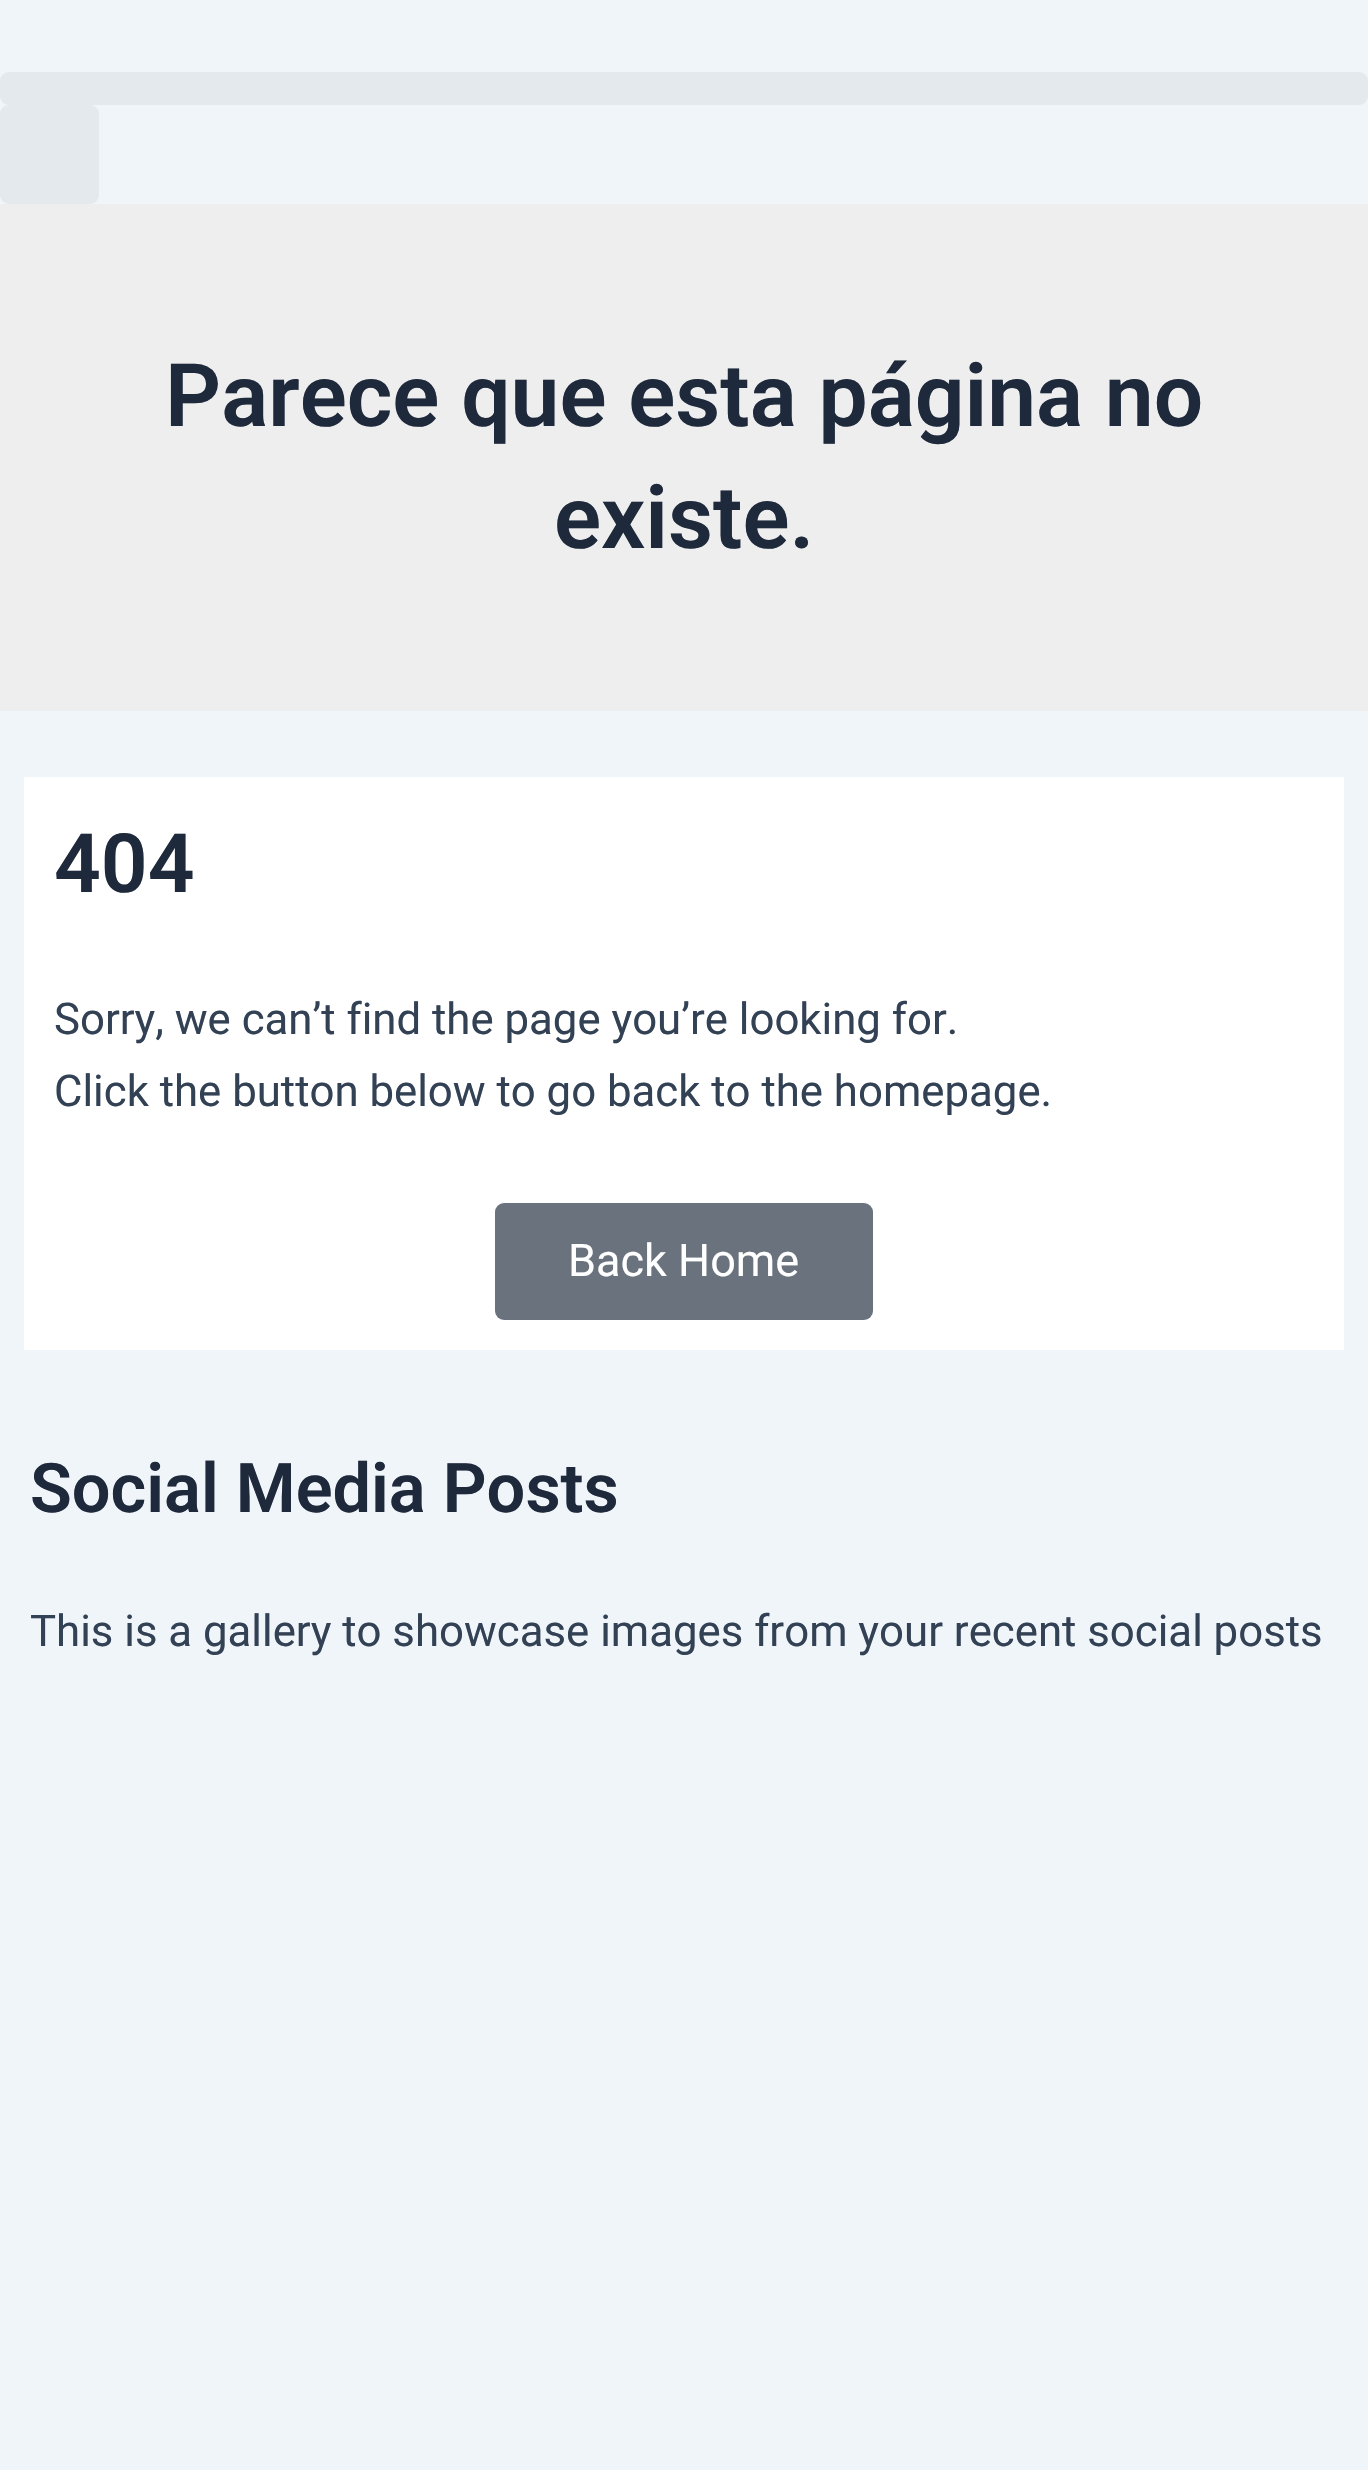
void draw(SkCanvas* c) {
SkPaint p;
p.setAntiAlias(true);
auto F=[&](const char* family, int weight, float size, bool italic = false){SkFontStyle style(weight, SkFontStyle::kNormal_Width,italic ? SkFontStyle::kItalic_Slant : SkFontStyle::kUpright_Slant);SkFont result(fontMgr->matchFamilyStyle(family, style), size);result.setSubpixel(true);return result;};
auto T=[&](const char* s, float x, float y, const SkFont& font){c->drawString(s, x, y, font, p);};
auto R=[&](float x, float y, float w, float h){c->drawRect(SkRect::MakeXYWH(x, y, w, h), p);};
auto Q=[&](float x, float y, float w, float h, float radius){c->drawRoundRect(SkRect::MakeXYWH(x, y, w, h), radius, radius, p);};
c->clear(0xfff0f5fa);
p.setColor(0xffe4e9ee);
Q(0,72,1368,33,9);
Q(0,105,99,99,9);
p.setColor(0xffeeeeee);
R(0,204,1368,507);
auto f1 = F("Roboto",600,87.5);
p.setColor(0xff1e293b);
T("Parece que esta página no",165,426,f1);
T("existe.",554,548,f1);
p.setColor(0xffffffff);
R(24,777,1320,573);
auto f2 = F("Roboto",600,82);
p.setColor(0xff1e293b);
T("404",54,892,f2);
auto f3 = F("Roboto",400,43.75);
p.setColor(0xff334155);
T("Sorry, we can’t find the page you’re looking for.",54,1034,f3);
T("Click the button below to go back to the homepage.",54,1106,f3);
p.setColor(0xff69727d);
Q(495,1203,378,117,9);
auto f4 = F("Roboto",400,45);
p.setColor(0xffffffff);
T("Back Home",568,1276,f4);
auto f5 = F("Roboto",600,68.5);
p.setColor(0xff1e293b);
T("Social Media Posts",30,1512,f5);
p.setColor(0xff334155);
T("This is a gallery to showcase images from your recent social posts",30,1646,f3);
}
